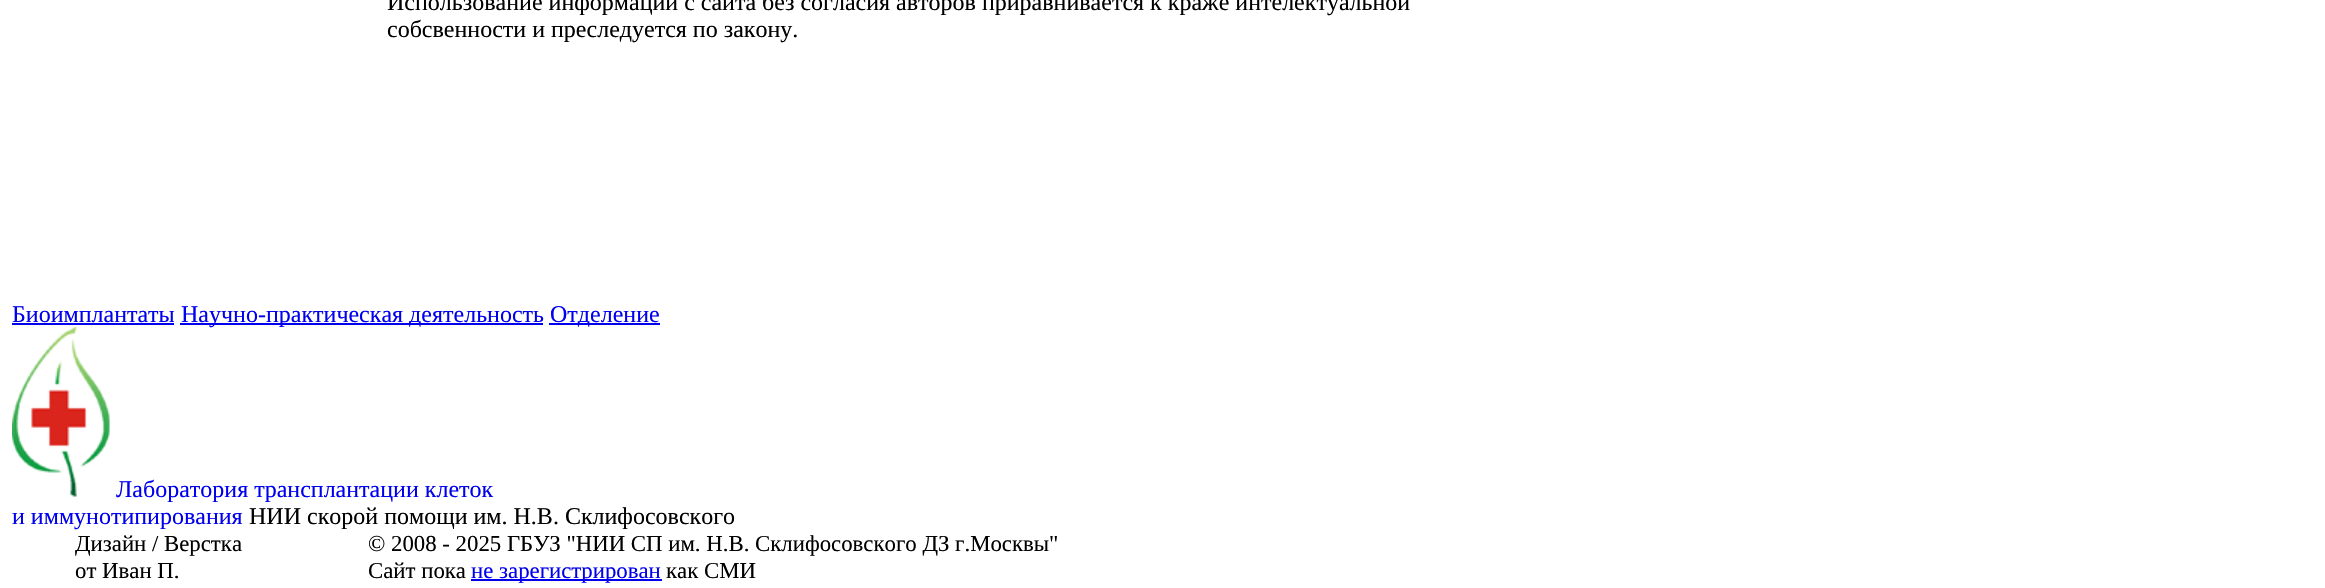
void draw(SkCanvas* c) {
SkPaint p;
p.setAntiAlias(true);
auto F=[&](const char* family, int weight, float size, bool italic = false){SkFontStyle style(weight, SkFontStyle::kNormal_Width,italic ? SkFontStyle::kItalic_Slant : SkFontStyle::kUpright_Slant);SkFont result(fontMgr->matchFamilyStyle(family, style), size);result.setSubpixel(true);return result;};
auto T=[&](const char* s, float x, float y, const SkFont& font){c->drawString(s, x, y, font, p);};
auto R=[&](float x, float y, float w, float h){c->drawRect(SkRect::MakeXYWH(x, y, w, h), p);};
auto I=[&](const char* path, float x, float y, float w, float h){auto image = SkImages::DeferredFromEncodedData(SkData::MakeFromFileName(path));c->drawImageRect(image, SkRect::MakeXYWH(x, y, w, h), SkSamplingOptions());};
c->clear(0xffffffff);
auto f1 = F("Liberation Serif",400,24);
p.setColor(0xff000000);
T("Использование информации с сайта без согласия авторов приравнивается к краже интелектуальной",387,10,f1);
T("собсвенности и преследуется по закону.",387,37,f1);
p.setColor(0xff0000ee);
T("Биоимплантаты",12,322,f1);
R(12,323,162,2);
R(180,323,363,2);
T("Научно-практическая деятельность",181,322,f1);
R(549,323,111,2);
T("Отделение",550,322,f1);
I("1.png",12,327,98,170);
T("Лаборатория трансплантации клеток",116,497,f1);
T("и иммунотипирования",12,524,f1);
p.setColor(0xff000000);
T("НИИ скорой помощи им. Н.В. Склифосовского",249,524,f1);
auto f2 = F("Liberation Serif",400,22.8);
T("Дизайн / Верстка",75,551,f2);
T("от Иван П.",75,578,f2);
T("© 2008 - 2025 ГБУЗ \"НИИ СП им. Н.В. Склифосовского ДЗ г.Москвы\"",368,551,f2);
T("Сайт пока",368,578,f2);
p.setColor(0xff0000ee);
R(471,579,191,2);
T("не зарегистрирован",471,578,f2);
p.setColor(0xff000000);
T("как СМИ",666,578,f2);
}
